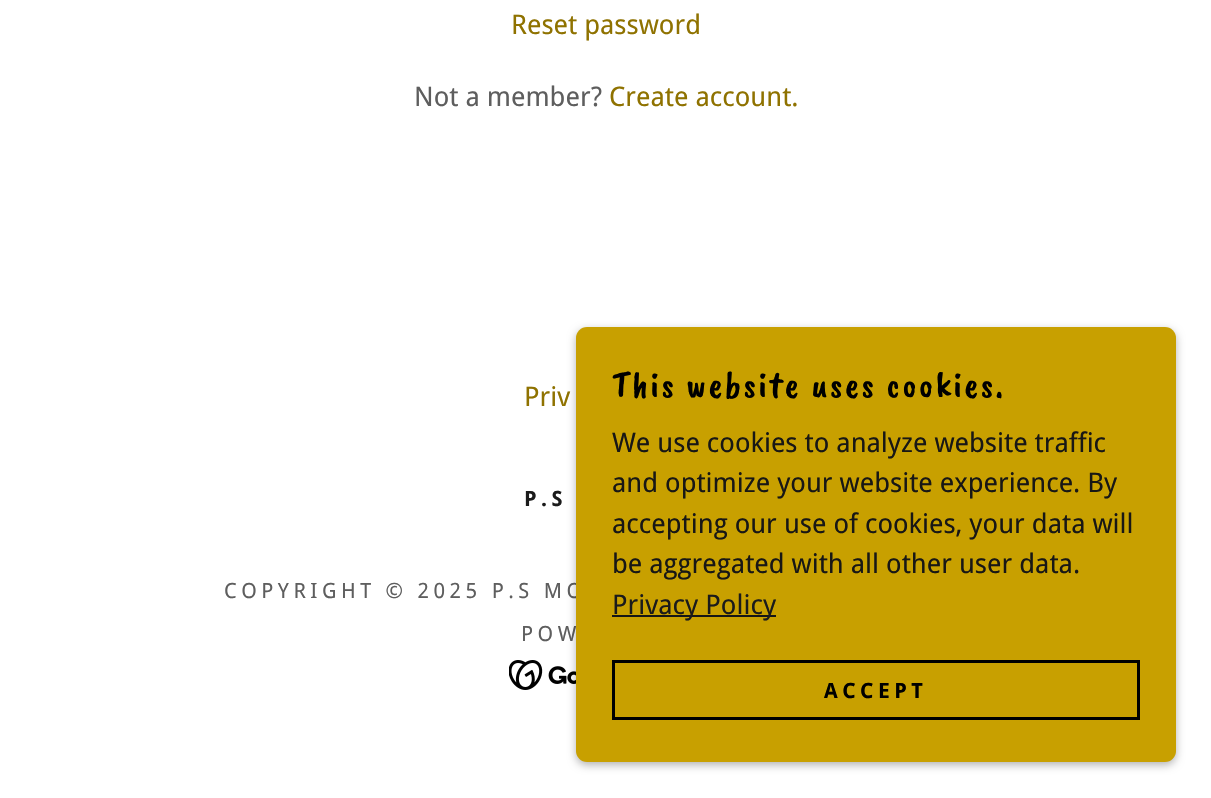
void draw(SkCanvas* c) {
SkPaint p;
p.setAntiAlias(true);
auto F=[&](const char* family, int weight, float size, bool italic = false){SkFontStyle style(weight, SkFontStyle::kNormal_Width,italic ? SkFontStyle::kItalic_Slant : SkFontStyle::kUpright_Slant);SkFont result(fontMgr->matchFamilyStyle(family, style), size);result.setSubpixel(true);return result;};
auto T=[&](const char* s, float x, float y, const SkFont& font){c->drawString(s, x, y, font, p);};
auto L=[&](const char* s, float x, float y, const SkFont& font, const SkPaint& ink, float letter, float word){std::vector<SkGlyphID> glyphs(font.countText(s, strlen(s), SkTextEncoding::kUTF8));std::vector<float> xs(glyphs.size());font.textToGlyphs(s, strlen(s), SkTextEncoding::kUTF8, glyphs);font.getXPos(glyphs, xs, x);float extra = 0;for (size_t i = 0; i < glyphs.size(); i++) {xs[i] += extra;extra += letter + word * (glyphs[i] == font.unicharToGlyph(' '));}c->drawTextBlob(SkTextBlob::MakeFromPosHGlyphs(glyphs, xs, y, font), 0, 0, ink);};
auto R=[&](float x, float y, float w, float h){c->drawRect(SkRect::MakeXYWH(x, y, w, h), p);};
auto Q=[&](float x, float y, float w, float h, float radius){c->drawRoundRect(SkRect::MakeXYWH(x, y, w, h), radius, radius, p);};
auto I=[&](const char* path, float x, float y, float w, float h){auto image = SkImages::DeferredFromEncodedData(SkData::MakeFromFileName(path));c->drawImageRect(image, SkRect::MakeXYWH(x, y, w, h), SkSamplingOptions());};
c->clear(0xffffffff);
auto f1 = F("Droid Sans",400,27);
p.setColor(0xff8f7200);
T("Reset password",511,34,f1);
p.setColor(0xff5e5e5e);
T("Not a member?",414,106,f1);
p.setColor(0xff8f7200);
T("Create account.",609,106,f1);
T("Priv",524,406,f1);
auto f2 = F("Droid Sans",700,21);
p.setColor(0xff1b1b1b);
L("P.S",524,506,f2,p,4.5,0);
auto f3 = F("Droid Sans",400,21);
p.setColor(0xff5e5e5e);
L("COPYRIGHT © 2025 P.S MO",224,598,f3,p,4.5,0);
L("POW",521,641,f3,p,4.5,0);
I("1.png",509,660,67,30);
p.setColor(0x4d000000);
p.setMaskFilter(SkMaskFilter::MakeBlur(kNormal_SkBlurStyle, 4.5));
c->drawRoundRect(SkRect::MakeXYWH(576,330,600,435),11,11,p);
p.setMaskFilter(nullptr);
p.setColor(0xffc8a000);
Q(576,327,600,435,11);
auto f4 = F("Caveat Brush",400,37.5);
p.setColor(0xff000000);
L("This website uses cookies.",612,397,f4,p,2.25,0);
p.setColor(0xff181715);
T("We use cookies to analyze website traffic",612,452,f1);
T("and optimize your website experience. By",612,492,f1);
T("accepting our use of cookies, your data will",612,533,f1);
T("be aggregated with all other user data.",612,573,f1);
p.setColor(0xff161616);
R(612,615,164,2);
p.setColor(0xff1b1b1b);
T("Privacy Policy",612,614,f1);
p.setStroke(true);
p.setStrokeWidth(3);
p.setColor(0xff000000);
c->drawRect(SkRect::MakeXYWH(613.5,661.5,525,57),p);
p.setStroke(false);
L("ACCEPT",824,698,f2,p,4.5,0);
}
